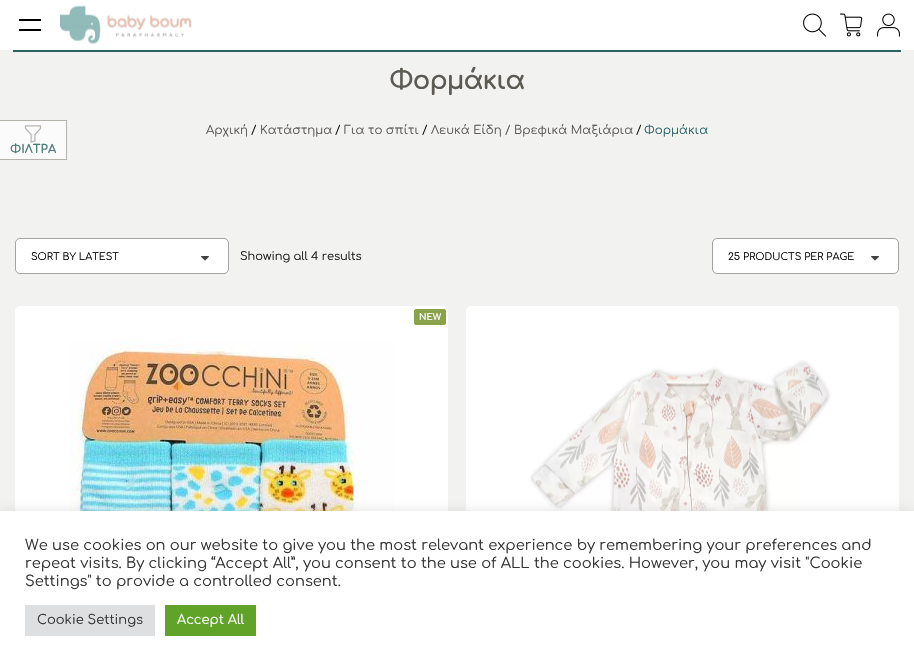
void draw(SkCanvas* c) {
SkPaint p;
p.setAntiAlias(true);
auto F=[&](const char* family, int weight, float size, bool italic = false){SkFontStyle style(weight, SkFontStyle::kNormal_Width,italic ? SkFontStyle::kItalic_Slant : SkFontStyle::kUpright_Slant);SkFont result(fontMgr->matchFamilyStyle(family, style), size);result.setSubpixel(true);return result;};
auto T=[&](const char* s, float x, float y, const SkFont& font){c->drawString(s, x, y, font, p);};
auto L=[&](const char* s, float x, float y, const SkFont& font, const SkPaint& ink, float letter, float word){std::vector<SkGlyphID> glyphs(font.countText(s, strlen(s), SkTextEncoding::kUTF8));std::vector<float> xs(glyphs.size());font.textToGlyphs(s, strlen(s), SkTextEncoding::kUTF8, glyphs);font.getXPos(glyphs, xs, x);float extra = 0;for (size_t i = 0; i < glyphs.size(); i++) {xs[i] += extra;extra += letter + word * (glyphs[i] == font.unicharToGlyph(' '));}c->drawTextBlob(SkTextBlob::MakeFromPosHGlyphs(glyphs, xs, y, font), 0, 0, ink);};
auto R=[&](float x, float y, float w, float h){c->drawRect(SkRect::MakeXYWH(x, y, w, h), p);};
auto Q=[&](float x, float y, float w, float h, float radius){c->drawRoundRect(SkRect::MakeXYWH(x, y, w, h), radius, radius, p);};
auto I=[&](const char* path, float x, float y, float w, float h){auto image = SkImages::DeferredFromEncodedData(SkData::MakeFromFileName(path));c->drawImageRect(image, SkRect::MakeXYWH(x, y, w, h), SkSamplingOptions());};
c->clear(0xfff2f2f1);
p.setColor(0xffffffff);
R(0,0,914,50);
p.setColor(0xff000000);
R(19,19,22,2);
R(19,29,22,2);
I("1.png",60,5,132,39);
I("2.png",803,13,24,24);
I("3.png",840,13,23,24);
I("4.png",877,13,23,24);
p.setColor(0xff2c6464);
R(13,50,888,2);
auto f1 = F("Comfortaa",700,26);
p.setColor(0xff5d5a54);
L("Φορμάκια",389,89,f1,p,-1,0);
auto f2 = F("Comfortaa",400,11.75);
T("Αρχική",206,134,f2);
p.setColor(0xff191919);
T("/",251,134,f2);
p.setColor(0xff5d5a54);
T("Κατάστημα",260,134,f2);
p.setColor(0xff191919);
T("/",335,134,f2);
p.setColor(0xff5d5a54);
T("Για το σπίτι",344,134,f2);
p.setColor(0xff191919);
T("/",422,134,f2);
p.setColor(0xff5d5a54);
T("Λευκά Είδη / Βρεφικά Μαξιάρια",431,134,f2);
p.setColor(0xff191919);
T("/",636,134,f2);
p.setColor(0xff2c6464);
T("Φορμάκια",644,134,f2);
p.setColor(0xfffbfbfb);
R(0,121,66,38);
p.setColor(0xffb5b2ac);
R(0,120,67,1);
R(66,120,1,40);
R(0,159,67,1);
I("5.png",24,125,18,18);
auto f3 = F("Comfortaa",700,11.75);
p.setColor(0xff4a7979);
T("ΦΙΛΤΡΑ",10,153,f3);
p.setColor(0xffffffff);
c->drawRoundRect(SkRect::MakeXYWH(15.5,238.5,213,35),4.5,4.5,p);
p.setStroke(true);
p.setStrokeWidth(1);
p.setColor(0xffa3a3a3);
c->drawRoundRect(SkRect::MakeXYWH(15.5,238.5,213,35),4.5,4.5,p);
auto f4 = F("Comfortaa",400,10);
p.setStroke(false);
p.setColor(0xff000000);
T("SORT BY LATEST",31,260,f4);
I("6.png",201,256,8,5);
auto f5 = F("Comfortaa",400,11.4);
p.setColor(0xff191919);
T("Showing all 4 results",240,260,f5);
p.setColor(0xffffffff);
c->drawRoundRect(SkRect::MakeXYWH(712.5,238.5,186,35),4.5,4.5,p);
p.setStroke(true);
p.setColor(0xffa3a3a3);
c->drawRoundRect(SkRect::MakeXYWH(712.5,238.5,186,35),4.5,4.5,p);
p.setStroke(false);
p.setColor(0xff000000);
T("25 PRODUCTS PER PAGE",728,260,f4);
I("6.png",871,256,8,5);
p.setColor(0xffffffff);
Q(15,306,433,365,5);
p.setColor(0xff89a34c);
c->drawRoundRect(SkRect::MakeXYWH(414.5,309.5,31,15),1.5,1.5,p);
p.setStroke(true);
c->drawRoundRect(SkRect::MakeXYWH(414.5,309.5,31,15),1.5,1.5,p);
auto f6 = F("Comfortaa",700,9);
p.setStroke(false);
p.setColor(0xffffffff);
T("NEW",419,320,f6);
I("7.png",70,339,324,172);
Q(466,306,433,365,5);
I("8.png",530,360,314,151);
p.setColor(0x4dacabab);
p.setMaskFilter(SkMaskFilter::MakeBlur(kNormal_SkBlurStyle, 5));
c->drawRect(SkRect::MakeXYWH(0,510,914,155),p);
p.setMaskFilter(nullptr);
p.setColor(0xffffffff);
R(0,511,914,155);
auto f7 = F("Comfortaa",400,14.67);
p.setColor(0xff333333);
T("We use cookies on our website to give you the most relevant experience by remembering your preferences and",25,550,f7);
T("repeat visits. By clicking “Accept All”, you consent to the use of ALL the cookies. However, you may visit \"Cookie",25,568,f7);
T("Settings\" to provide a controlled consent.",25,586,f7);
p.setColor(0xffdedfe0);
R(25,605,130,31);
auto f8 = F("Comfortaa",400,13);
p.setColor(0xff333333);
T("Cookie Settings",37,624,f8);
p.setColor(0xff61a229);
R(165,605,91,31);
p.setColor(0xffffffff);
T("Accept All",177,624,f8);
}
